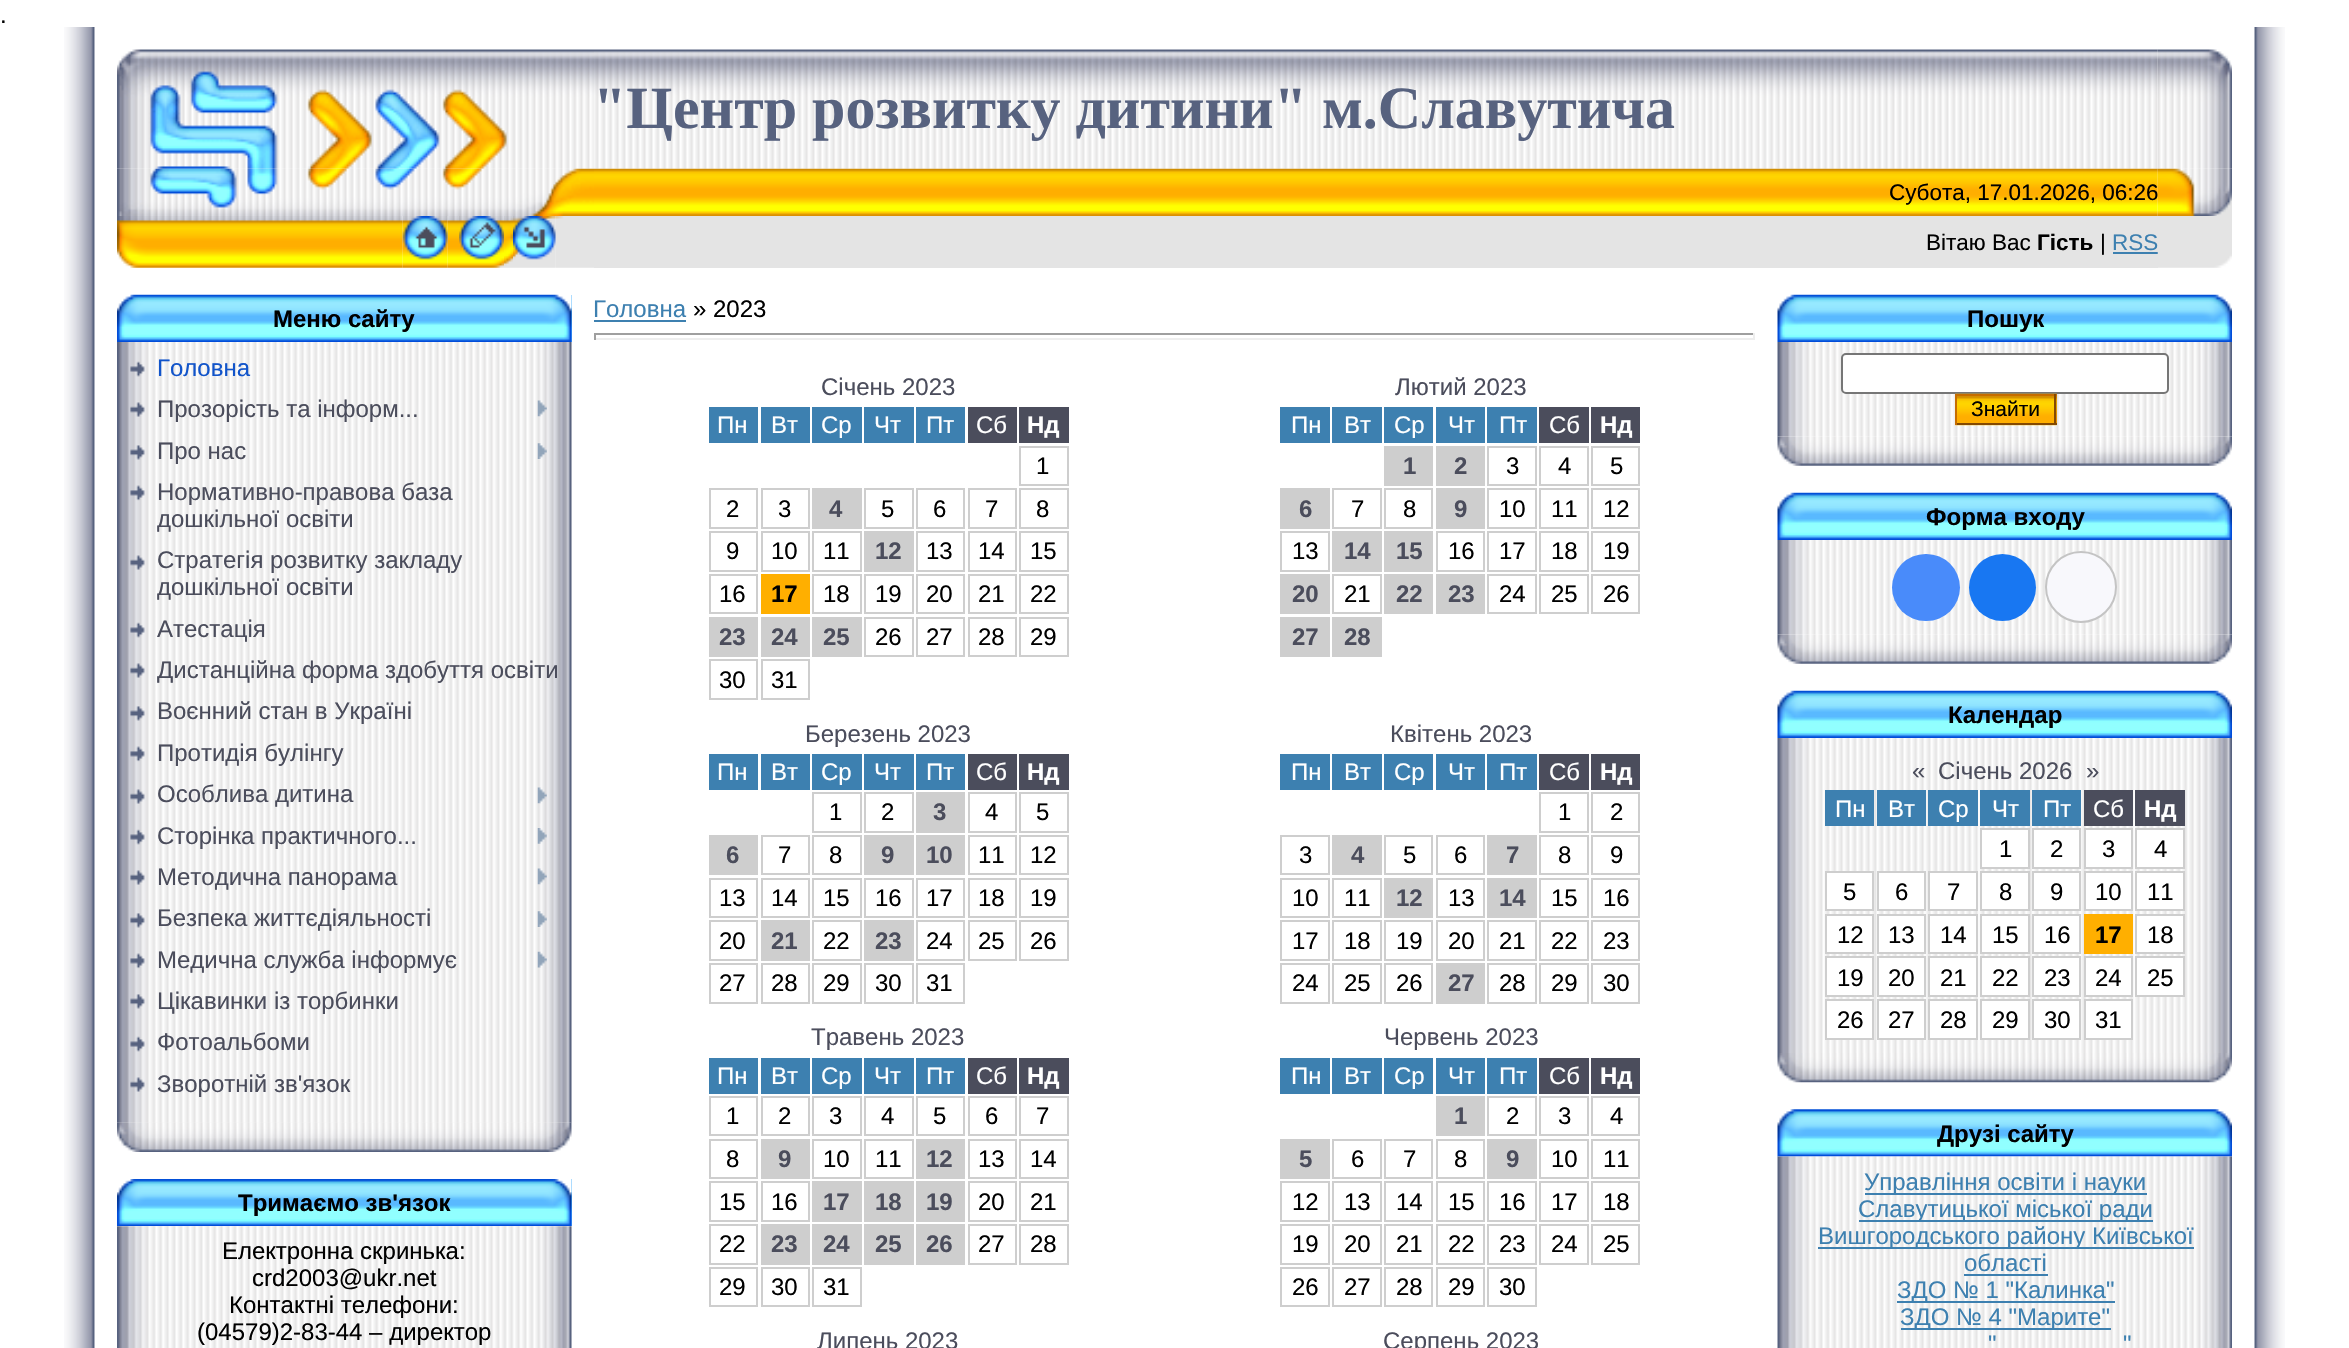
void draw(SkCanvas* c) {
SkPaint p;
p.setAntiAlias(true);
auto F=[&](const char* family, int weight, float size, bool italic = false){SkFontStyle style(weight, SkFontStyle::kNormal_Width,italic ? SkFontStyle::kItalic_Slant : SkFontStyle::kUpright_Slant);SkFont result(fontMgr->matchFamilyStyle(family, style), size);result.setSubpixel(true);return result;};
auto T=[&](const char* s, float x, float y, const SkFont& font){c->drawString(s, x, y, font, p);};
auto R=[&](float x, float y, float w, float h){c->drawRect(SkRect::MakeXYWH(x, y, w, h), p);};
auto Q=[&](float x, float y, float w, float h, float radius){c->drawRoundRect(SkRect::MakeXYWH(x, y, w, h), radius, radius, p);};
auto I=[&](const char* path, float x, float y, float w, float h){auto image = SkImages::DeferredFromEncodedData(SkData::MakeFromFileName(path));c->drawImageRect(image, SkRect::MakeXYWH(x, y, w, h), SkSamplingOptions());};
c->clear(0xffffffff);
auto f1 = F("Liberation Sans",400,24);
p.setColor(0xff000000);
T(".",0,23,f1);
I("1.png",64,27,31,1321);
I("2.png",117,49,477,120);
I("3.png",594,49,1564,120);
auto f2 = F("Liberation Serif",700,60);
p.setColor(0xff57627f);
T("\"Центр розвитку дитини\" м.Славутича",593,128,f2);
I("6.png",594,168,1564,48);
I("4.png",2157,49,75,120);
I("5.png",117,168,477,48);
auto f3 = F("Liberation Sans",400,22.5);
p.setColor(0xff000000);
T("Субота, 17.01.2026, 06:26",1889,200,f3);
I("7.png",2157,168,75,48);
I("8.png",117,216,286,52);
I("9.png",402,216,46,52);
I("10.png",447,216,12,52);
I("11.png",459,216,45,52);
I("12.png",504,216,9,52);
I("13.png",513,216,43,52);
I("14.png",555,216,39,52);
p.setColor(0xffe4e4e4);
R(594,216,1564,52);
p.setColor(0xff000000);
T("Вітаю Вас",1926,250,f3);
auto f4 = F("Liberation Sans",700,22.5);
T("Гість",2037,250,f4);
T("|",2100,250,f3);
p.setColor(0xff3d80b0);
T("RSS",2112,250,f3);
R(2113,252,45,2);
I("15.png",2157,216,75,52);
p.setColor(0xff59b9ff);
R(571,295,1,47);
I("16.png",117,294,455,48);
auto f5 = F("Liberation Sans",700,24);
p.setColor(0xff000000);
T("Меню сайту",273,327,f5);
p.setColor(0xfff1f1f1);
R(117,342,455,781);
I("17.png",117,342,455,781);
I("18.png",130,361,15,16);
p.setColor(0xff1154ca);
T("Головна",157,376,f1);
I("19.png",130,402,15,15);
p.setColor(0xff4b4d5c);
T("Прозорість та інформ...",157,417,f1);
I("20.png",537,400,10,17);
I("21.png",130,445,15,15);
T("Про нас",157,459,f1);
I("22.png",537,443,10,16);
I("23.png",130,485,15,16);
T("Нормативно-правова база",157,500,f1);
T("дошкільної освіти",157,527,f1);
I("19.png",130,555,15,15);
T("Стратегія розвитку закладу",157,568,f1);
T("дошкільної освіти",157,595,f1);
I("18.png",130,622,15,16);
T("Атестація",157,637,f1);
I("19.png",130,663,15,15);
T("Дистанційна форма здобуття освіти",157,678,f1);
I("21.png",130,706,15,15);
T("Воєнний стан в Україні",157,719,f1);
I("23.png",130,746,15,16);
T("Протидія булінгу",157,761,f1);
I("19.png",130,789,15,15);
T("Особлива дитина",157,802,f1);
I("20.png",537,787,10,17);
I("24.png",130,829,15,16);
T("Сторінка практичного...",157,844,f1);
I("25.png",537,828,10,16);
I("19.png",130,870,15,15);
T("Методична панорама",157,885,f1);
I("20.png",537,868,10,17);
I("21.png",130,913,15,15);
T("Безпека життєдіяльності",157,926,f1);
I("22.png",537,911,10,16);
I("23.png",130,953,15,16);
T("Медична служба інформує",157,968,f1);
I("26.png",537,951,10,17);
I("21.png",130,994,15,15);
T("Цікавинки із торбинки",157,1009,f1);
I("18.png",130,1036,15,16);
T("Фотоальбоми",157,1050,f1);
I("19.png",130,1077,15,15);
T("Зворотній зв'язок",157,1092,f1);
I("27.png",117,1122,455,30);
p.setColor(0xff59b9ff);
R(571,1179,1,47);
I("28.png",117,1179,455,47);
p.setColor(0xff000000);
T("Тримаємо зв'язок",238,1211,f5);
p.setColor(0xfff1f1f1);
R(117,1226,455,122);
I("29.png",117,1226,455,122);
p.setColor(0xff000000);
T("Електронна скринька:",222,1259,f1);
T("crd2003@ukr.net",252,1286,f1);
T("Контактні телефони:",229,1313,f1);
T("(04579)2-83-44 – директор",197,1340,f1);
p.setColor(0xff3d80b0);
T("Головна",593,317,f1);
R(594,320,92,2);
p.setColor(0xff000000);
T("» 2023",693,317,f1);
p.setColor(0xff9f9f9f);
R(594,333,1161,2);
p.setColor(0xffeeeeee);
R(1753,333,2,7);
R(594,338,1161,2);
p.setColor(0xff9f9f9f);
R(594,333,2,7);
p.setColor(0xff4b4d5c);
T("Січень 2023",821,395,f1);
p.setColor(0xff3d80b0);
R(709,407,49,36);
p.setColor(0xffffffff);
T("Пн",717,433,f1);
p.setColor(0xff3d80b0);
R(761,407,49,36);
p.setColor(0xffffffff);
T("Вт",771,433,f1);
p.setColor(0xff3d80b0);
R(812,407,50,36);
p.setColor(0xffffffff);
T("Ср",821,433,f1);
p.setColor(0xff3d80b0);
R(864,407,50,36);
p.setColor(0xffffffff);
T("Чт",874,433,f1);
p.setColor(0xff3d80b0);
R(916,407,49,36);
p.setColor(0xffffffff);
T("Пт",926,433,f1);
p.setColor(0xff4b4d5c);
R(968,407,49,36);
p.setColor(0xffffffff);
T("Сб",976,433,f1);
p.setColor(0xff4b4d5c);
R(1019,407,50,36);
p.setColor(0xffffffff);
T("Нд",1027,433,f5);
p.setStroke(true);
p.setStrokeWidth(2);
p.setColor(0xffcecece);
c->drawRect(SkRect::MakeXYWH(1020,447,48,38),p);
p.setStroke(false);
p.setColor(0xff000000);
T("1",1036,474,f1);
p.setStroke(true);
p.setColor(0xffcecece);
c->drawRect(SkRect::MakeXYWH(710,489,47,39),p);
p.setStroke(false);
p.setColor(0xff000000);
T("2",726,517,f1);
p.setStroke(true);
p.setColor(0xffcecece);
c->drawRect(SkRect::MakeXYWH(762,489,47,39),p);
p.setStroke(false);
p.setColor(0xff000000);
T("3",778,517,f1);
p.setColor(0xffcecece);
R(812,488,50,41);
p.setColor(0xff4b4d5c);
T("4",829,517,f5);
p.setStroke(true);
p.setColor(0xffcecece);
c->drawRect(SkRect::MakeXYWH(865,489,48,39),p);
p.setStroke(false);
p.setColor(0xff000000);
T("5",881,517,f1);
p.setStroke(true);
p.setColor(0xffcecece);
c->drawRect(SkRect::MakeXYWH(917,489,47,39),p);
p.setStroke(false);
p.setColor(0xff000000);
T("6",933,517,f1);
p.setStroke(true);
p.setColor(0xffcecece);
c->drawRect(SkRect::MakeXYWH(969,489,47,39),p);
p.setStroke(false);
p.setColor(0xff000000);
T("7",985,517,f1);
p.setStroke(true);
p.setColor(0xffcecece);
c->drawRect(SkRect::MakeXYWH(1020,489,48,39),p);
p.setStroke(false);
p.setColor(0xff000000);
T("8",1036,517,f1);
p.setStroke(true);
p.setColor(0xffcecece);
c->drawRect(SkRect::MakeXYWH(710,532,47,39),p);
p.setStroke(false);
p.setColor(0xff000000);
T("9",726,559,f1);
p.setStroke(true);
p.setColor(0xffcecece);
c->drawRect(SkRect::MakeXYWH(762,532,47,39),p);
p.setStroke(false);
p.setColor(0xff000000);
T("10",771,559,f1);
p.setStroke(true);
p.setColor(0xffcecece);
c->drawRect(SkRect::MakeXYWH(813,532,48,39),p);
p.setStroke(false);
p.setColor(0xff000000);
T("11",823,559,f1);
p.setColor(0xffcecece);
R(864,531,50,41);
p.setColor(0xff4b4d5c);
T("12",875,559,f5);
p.setStroke(true);
p.setColor(0xffcecece);
c->drawRect(SkRect::MakeXYWH(917,532,47,39),p);
p.setStroke(false);
p.setColor(0xff000000);
T("13",926,559,f1);
p.setStroke(true);
p.setColor(0xffcecece);
c->drawRect(SkRect::MakeXYWH(969,532,47,39),p);
p.setStroke(false);
p.setColor(0xff000000);
T("14",978,559,f1);
p.setStroke(true);
p.setColor(0xffcecece);
c->drawRect(SkRect::MakeXYWH(1020,532,48,39),p);
p.setStroke(false);
p.setColor(0xff000000);
T("15",1030,559,f1);
p.setStroke(true);
p.setColor(0xffcecece);
c->drawRect(SkRect::MakeXYWH(710,575,47,38),p);
p.setStroke(false);
p.setColor(0xff000000);
T("16",719,602,f1);
p.setColor(0xffffaf00);
R(761,574,49,40);
p.setColor(0xff000000);
T("17",771,602,f5);
p.setStroke(true);
p.setColor(0xffcecece);
c->drawRect(SkRect::MakeXYWH(813,575,48,38),p);
p.setStroke(false);
p.setColor(0xff000000);
T("18",823,602,f1);
p.setStroke(true);
p.setColor(0xffcecece);
c->drawRect(SkRect::MakeXYWH(865,575,48,38),p);
p.setStroke(false);
p.setColor(0xff000000);
T("19",875,602,f1);
p.setStroke(true);
p.setColor(0xffcecece);
c->drawRect(SkRect::MakeXYWH(917,575,47,38),p);
p.setStroke(false);
p.setColor(0xff000000);
T("20",926,602,f1);
p.setStroke(true);
p.setColor(0xffcecece);
c->drawRect(SkRect::MakeXYWH(969,575,47,38),p);
p.setStroke(false);
p.setColor(0xff000000);
T("21",978,602,f1);
p.setStroke(true);
p.setColor(0xffcecece);
c->drawRect(SkRect::MakeXYWH(1020,575,48,38),p);
p.setStroke(false);
p.setColor(0xff000000);
T("22",1030,602,f1);
p.setColor(0xffcecece);
R(709,617,49,40);
p.setColor(0xff4b4d5c);
T("23",719,645,f5);
p.setColor(0xffcecece);
R(761,617,49,40);
p.setColor(0xff4b4d5c);
T("24",771,645,f5);
p.setColor(0xffcecece);
R(812,617,50,40);
p.setColor(0xff4b4d5c);
T("25",823,645,f5);
p.setStroke(true);
p.setColor(0xffcecece);
c->drawRect(SkRect::MakeXYWH(865,618,48,38),p);
p.setStroke(false);
p.setColor(0xff000000);
T("26",875,645,f1);
p.setStroke(true);
p.setColor(0xffcecece);
c->drawRect(SkRect::MakeXYWH(917,618,47,38),p);
p.setStroke(false);
p.setColor(0xff000000);
T("27",926,645,f1);
p.setStroke(true);
p.setColor(0xffcecece);
c->drawRect(SkRect::MakeXYWH(969,618,47,38),p);
p.setStroke(false);
p.setColor(0xff000000);
T("28",978,645,f1);
p.setStroke(true);
p.setColor(0xffcecece);
c->drawRect(SkRect::MakeXYWH(1020,618,48,38),p);
p.setStroke(false);
p.setColor(0xff000000);
T("29",1030,645,f1);
p.setStroke(true);
p.setColor(0xffcecece);
c->drawRect(SkRect::MakeXYWH(710,660,47,39),p);
p.setStroke(false);
p.setColor(0xff000000);
T("30",719,688,f1);
p.setStroke(true);
p.setColor(0xffcecece);
c->drawRect(SkRect::MakeXYWH(762,660,47,39),p);
p.setStroke(false);
p.setColor(0xff000000);
T("31",771,688,f1);
p.setColor(0xff4b4d5c);
T("Лютий 2023",1395,395,f1);
p.setColor(0xff3d80b0);
R(1280,407,50,36);
p.setColor(0xffffffff);
T("Пн",1291,433,f1);
p.setColor(0xff3d80b0);
R(1332,407,50,36);
p.setColor(0xffffffff);
T("Вт",1344,433,f1);
p.setColor(0xff3d80b0);
R(1384,407,49,36);
p.setColor(0xffffffff);
T("Ср",1394,433,f1);
p.setColor(0xff3d80b0);
R(1436,407,49,36);
p.setColor(0xffffffff);
T("Чт",1448,433,f1);
p.setColor(0xff3d80b0);
R(1487,407,50,36);
p.setColor(0xffffffff);
T("Пт",1499,433,f1);
p.setColor(0xff4b4d5c);
R(1539,407,50,36);
p.setColor(0xffffffff);
T("Сб",1549,433,f1);
p.setColor(0xff4b4d5c);
R(1591,407,49,36);
p.setColor(0xffffffff);
T("Нд",1600,433,f5);
p.setColor(0xffcecece);
R(1384,446,49,40);
p.setColor(0xff4b4d5c);
T("1",1403,474,f5);
p.setColor(0xffcecece);
R(1436,446,49,40);
p.setColor(0xff4b4d5c);
T("2",1454,474,f5);
p.setStroke(true);
p.setColor(0xffcecece);
c->drawRect(SkRect::MakeXYWH(1488,447,48,38),p);
p.setStroke(false);
p.setColor(0xff000000);
T("3",1506,474,f1);
p.setStroke(true);
p.setColor(0xffcecece);
c->drawRect(SkRect::MakeXYWH(1540,447,48,38),p);
p.setStroke(false);
p.setColor(0xff000000);
T("4",1558,474,f1);
p.setStroke(true);
p.setColor(0xffcecece);
c->drawRect(SkRect::MakeXYWH(1592,447,47,38),p);
p.setStroke(false);
p.setColor(0xff000000);
T("5",1610,474,f1);
p.setColor(0xffcecece);
R(1280,488,50,41);
p.setColor(0xff4b4d5c);
T("6",1299,517,f5);
p.setStroke(true);
p.setColor(0xffcecece);
c->drawRect(SkRect::MakeXYWH(1333,489,48,39),p);
p.setStroke(false);
p.setColor(0xff000000);
T("7",1351,517,f1);
p.setStroke(true);
p.setColor(0xffcecece);
c->drawRect(SkRect::MakeXYWH(1385,489,47,39),p);
p.setStroke(false);
p.setColor(0xff000000);
T("8",1403,517,f1);
p.setColor(0xffcecece);
R(1436,488,49,41);
p.setColor(0xff4b4d5c);
T("9",1454,517,f5);
p.setStroke(true);
p.setColor(0xffcecece);
c->drawRect(SkRect::MakeXYWH(1488,489,48,39),p);
p.setStroke(false);
p.setColor(0xff000000);
T("10",1499,517,f1);
p.setStroke(true);
p.setColor(0xffcecece);
c->drawRect(SkRect::MakeXYWH(1540,489,48,39),p);
p.setStroke(false);
p.setColor(0xff000000);
T("11",1551,517,f1);
p.setStroke(true);
p.setColor(0xffcecece);
c->drawRect(SkRect::MakeXYWH(1592,489,47,39),p);
p.setStroke(false);
p.setColor(0xff000000);
T("12",1603,517,f1);
p.setStroke(true);
p.setColor(0xffcecece);
c->drawRect(SkRect::MakeXYWH(1281,532,48,39),p);
p.setStroke(false);
p.setColor(0xff000000);
T("13",1292,559,f1);
p.setColor(0xffcecece);
R(1332,531,50,41);
p.setColor(0xff4b4d5c);
T("14",1344,559,f5);
p.setColor(0xffcecece);
R(1384,531,49,41);
p.setColor(0xff4b4d5c);
T("15",1396,559,f5);
p.setStroke(true);
p.setColor(0xffcecece);
c->drawRect(SkRect::MakeXYWH(1437,532,47,39),p);
p.setStroke(false);
p.setColor(0xff000000);
T("16",1448,559,f1);
p.setStroke(true);
p.setColor(0xffcecece);
c->drawRect(SkRect::MakeXYWH(1488,532,48,39),p);
p.setStroke(false);
p.setColor(0xff000000);
T("17",1499,559,f1);
p.setStroke(true);
p.setColor(0xffcecece);
c->drawRect(SkRect::MakeXYWH(1540,532,48,39),p);
p.setStroke(false);
p.setColor(0xff000000);
T("18",1551,559,f1);
p.setStroke(true);
p.setColor(0xffcecece);
c->drawRect(SkRect::MakeXYWH(1592,532,47,39),p);
p.setStroke(false);
p.setColor(0xff000000);
T("19",1603,559,f1);
p.setColor(0xffcecece);
R(1280,574,50,40);
p.setColor(0xff4b4d5c);
T("20",1292,602,f5);
p.setStroke(true);
p.setColor(0xffcecece);
c->drawRect(SkRect::MakeXYWH(1333,575,48,38),p);
p.setStroke(false);
p.setColor(0xff000000);
T("21",1344,602,f1);
p.setColor(0xffcecece);
R(1384,574,49,40);
p.setColor(0xff4b4d5c);
T("22",1396,602,f5);
p.setColor(0xffcecece);
R(1436,574,49,40);
p.setColor(0xff4b4d5c);
T("23",1448,602,f5);
p.setStroke(true);
p.setColor(0xffcecece);
c->drawRect(SkRect::MakeXYWH(1488,575,48,38),p);
p.setStroke(false);
p.setColor(0xff000000);
T("24",1499,602,f1);
p.setStroke(true);
p.setColor(0xffcecece);
c->drawRect(SkRect::MakeXYWH(1540,575,48,38),p);
p.setStroke(false);
p.setColor(0xff000000);
T("25",1551,602,f1);
p.setStroke(true);
p.setColor(0xffcecece);
c->drawRect(SkRect::MakeXYWH(1592,575,47,38),p);
p.setStroke(false);
p.setColor(0xff000000);
T("26",1603,602,f1);
p.setColor(0xffcecece);
R(1280,617,50,40);
p.setColor(0xff4b4d5c);
T("27",1292,645,f5);
p.setColor(0xffcecece);
R(1332,617,50,40);
p.setColor(0xff4b4d5c);
T("28",1344,645,f5);
T("Березень 2023",805,742,f1);
p.setColor(0xff3d80b0);
R(709,754,49,36);
p.setColor(0xffffffff);
T("Пн",717,780,f1);
p.setColor(0xff3d80b0);
R(761,754,49,36);
p.setColor(0xffffffff);
T("Вт",771,780,f1);
p.setColor(0xff3d80b0);
R(812,754,50,36);
p.setColor(0xffffffff);
T("Ср",821,780,f1);
p.setColor(0xff3d80b0);
R(864,754,50,36);
p.setColor(0xffffffff);
T("Чт",874,780,f1);
p.setColor(0xff3d80b0);
R(916,754,49,36);
p.setColor(0xffffffff);
T("Пт",926,780,f1);
p.setColor(0xff4b4d5c);
R(968,754,49,36);
p.setColor(0xffffffff);
T("Сб",976,780,f1);
p.setColor(0xff4b4d5c);
R(1019,754,50,36);
p.setColor(0xffffffff);
T("Нд",1027,780,f5);
p.setStroke(true);
p.setColor(0xffcecece);
c->drawRect(SkRect::MakeXYWH(813,793,48,39),p);
p.setStroke(false);
p.setColor(0xff000000);
T("1",829,820,f1);
p.setStroke(true);
p.setColor(0xffcecece);
c->drawRect(SkRect::MakeXYWH(865,793,48,39),p);
p.setStroke(false);
p.setColor(0xff000000);
T("2",881,820,f1);
p.setColor(0xffcecece);
R(916,792,49,41);
p.setColor(0xff4b4d5c);
T("3",933,820,f5);
p.setStroke(true);
p.setColor(0xffcecece);
c->drawRect(SkRect::MakeXYWH(969,793,47,39),p);
p.setStroke(false);
p.setColor(0xff000000);
T("4",985,820,f1);
p.setStroke(true);
p.setColor(0xffcecece);
c->drawRect(SkRect::MakeXYWH(1020,793,48,39),p);
p.setStroke(false);
p.setColor(0xff000000);
T("5",1036,820,f1);
p.setColor(0xffcecece);
R(709,835,49,40);
p.setColor(0xff4b4d5c);
T("6",726,863,f5);
p.setStroke(true);
p.setColor(0xffcecece);
c->drawRect(SkRect::MakeXYWH(762,836,47,38),p);
p.setStroke(false);
p.setColor(0xff000000);
T("7",778,863,f1);
p.setStroke(true);
p.setColor(0xffcecece);
c->drawRect(SkRect::MakeXYWH(813,836,48,38),p);
p.setStroke(false);
p.setColor(0xff000000);
T("8",829,863,f1);
p.setColor(0xffcecece);
R(864,835,50,40);
p.setColor(0xff4b4d5c);
T("9",881,863,f5);
p.setColor(0xffcecece);
R(916,835,49,40);
p.setColor(0xff4b4d5c);
T("10",926,863,f5);
p.setStroke(true);
p.setColor(0xffcecece);
c->drawRect(SkRect::MakeXYWH(969,836,47,38),p);
p.setStroke(false);
p.setColor(0xff000000);
T("11",978,863,f1);
p.setStroke(true);
p.setColor(0xffcecece);
c->drawRect(SkRect::MakeXYWH(1020,836,48,38),p);
p.setStroke(false);
p.setColor(0xff000000);
T("12",1030,863,f1);
p.setStroke(true);
p.setColor(0xffcecece);
c->drawRect(SkRect::MakeXYWH(710,879,47,38),p);
p.setStroke(false);
p.setColor(0xff000000);
T("13",719,906,f1);
p.setStroke(true);
p.setColor(0xffcecece);
c->drawRect(SkRect::MakeXYWH(762,879,47,38),p);
p.setStroke(false);
p.setColor(0xff000000);
T("14",771,906,f1);
p.setStroke(true);
p.setColor(0xffcecece);
c->drawRect(SkRect::MakeXYWH(813,879,48,38),p);
p.setStroke(false);
p.setColor(0xff000000);
T("15",823,906,f1);
p.setStroke(true);
p.setColor(0xffcecece);
c->drawRect(SkRect::MakeXYWH(865,879,48,38),p);
p.setStroke(false);
p.setColor(0xff000000);
T("16",875,906,f1);
p.setStroke(true);
p.setColor(0xffcecece);
c->drawRect(SkRect::MakeXYWH(917,879,47,38),p);
p.setStroke(false);
p.setColor(0xff000000);
T("17",926,906,f1);
p.setStroke(true);
p.setColor(0xffcecece);
c->drawRect(SkRect::MakeXYWH(969,879,47,38),p);
p.setStroke(false);
p.setColor(0xff000000);
T("18",978,906,f1);
p.setStroke(true);
p.setColor(0xffcecece);
c->drawRect(SkRect::MakeXYWH(1020,879,48,38),p);
p.setStroke(false);
p.setColor(0xff000000);
T("19",1030,906,f1);
p.setStroke(true);
p.setColor(0xffcecece);
c->drawRect(SkRect::MakeXYWH(710,921,47,39),p);
p.setStroke(false);
p.setColor(0xff000000);
T("20",719,949,f1);
p.setColor(0xffcecece);
R(761,920,49,41);
p.setColor(0xff4b4d5c);
T("21",771,949,f5);
p.setStroke(true);
p.setColor(0xffcecece);
c->drawRect(SkRect::MakeXYWH(813,921,48,39),p);
p.setStroke(false);
p.setColor(0xff000000);
T("22",823,949,f1);
p.setColor(0xffcecece);
R(864,920,50,41);
p.setColor(0xff4b4d5c);
T("23",875,949,f5);
p.setStroke(true);
p.setColor(0xffcecece);
c->drawRect(SkRect::MakeXYWH(917,921,47,39),p);
p.setStroke(false);
p.setColor(0xff000000);
T("24",926,949,f1);
p.setStroke(true);
p.setColor(0xffcecece);
c->drawRect(SkRect::MakeXYWH(969,921,47,39),p);
p.setStroke(false);
p.setColor(0xff000000);
T("25",978,949,f1);
p.setStroke(true);
p.setColor(0xffcecece);
c->drawRect(SkRect::MakeXYWH(1020,921,48,39),p);
p.setStroke(false);
p.setColor(0xff000000);
T("26",1030,949,f1);
p.setStroke(true);
p.setColor(0xffcecece);
c->drawRect(SkRect::MakeXYWH(710,964,47,39),p);
p.setStroke(false);
p.setColor(0xff000000);
T("27",719,991,f1);
p.setStroke(true);
p.setColor(0xffcecece);
c->drawRect(SkRect::MakeXYWH(762,964,47,39),p);
p.setStroke(false);
p.setColor(0xff000000);
T("28",771,991,f1);
p.setStroke(true);
p.setColor(0xffcecece);
c->drawRect(SkRect::MakeXYWH(813,964,48,39),p);
p.setStroke(false);
p.setColor(0xff000000);
T("29",823,991,f1);
p.setStroke(true);
p.setColor(0xffcecece);
c->drawRect(SkRect::MakeXYWH(865,964,48,39),p);
p.setStroke(false);
p.setColor(0xff000000);
T("30",875,991,f1);
p.setStroke(true);
p.setColor(0xffcecece);
c->drawRect(SkRect::MakeXYWH(917,964,47,39),p);
p.setStroke(false);
p.setColor(0xff000000);
T("31",926,991,f1);
p.setColor(0xff4b4d5c);
T("Квітень 2023",1390,742,f1);
p.setColor(0xff3d80b0);
R(1280,754,50,36);
p.setColor(0xffffffff);
T("Пн",1291,780,f1);
p.setColor(0xff3d80b0);
R(1332,754,50,36);
p.setColor(0xffffffff);
T("Вт",1344,780,f1);
p.setColor(0xff3d80b0);
R(1384,754,49,36);
p.setColor(0xffffffff);
T("Ср",1394,780,f1);
p.setColor(0xff3d80b0);
R(1436,754,49,36);
p.setColor(0xffffffff);
T("Чт",1448,780,f1);
p.setColor(0xff3d80b0);
R(1487,754,50,36);
p.setColor(0xffffffff);
T("Пт",1499,780,f1);
p.setColor(0xff4b4d5c);
R(1539,754,50,36);
p.setColor(0xffffffff);
T("Сб",1549,780,f1);
p.setColor(0xff4b4d5c);
R(1591,754,49,36);
p.setColor(0xffffffff);
T("Нд",1600,780,f5);
p.setStroke(true);
p.setColor(0xffcecece);
c->drawRect(SkRect::MakeXYWH(1540,793,48,39),p);
p.setStroke(false);
p.setColor(0xff000000);
T("1",1558,820,f1);
p.setStroke(true);
p.setColor(0xffcecece);
c->drawRect(SkRect::MakeXYWH(1592,793,47,39),p);
p.setStroke(false);
p.setColor(0xff000000);
T("2",1610,820,f1);
p.setStroke(true);
p.setColor(0xffcecece);
c->drawRect(SkRect::MakeXYWH(1281,836,48,38),p);
p.setStroke(false);
p.setColor(0xff000000);
T("3",1299,863,f1);
p.setColor(0xffcecece);
R(1332,835,50,40);
p.setColor(0xff4b4d5c);
T("4",1351,863,f5);
p.setStroke(true);
p.setColor(0xffcecece);
c->drawRect(SkRect::MakeXYWH(1385,836,47,38),p);
p.setStroke(false);
p.setColor(0xff000000);
T("5",1403,863,f1);
p.setStroke(true);
p.setColor(0xffcecece);
c->drawRect(SkRect::MakeXYWH(1437,836,47,38),p);
p.setStroke(false);
p.setColor(0xff000000);
T("6",1454,863,f1);
p.setColor(0xffcecece);
R(1487,835,50,40);
p.setColor(0xff4b4d5c);
T("7",1506,863,f5);
p.setStroke(true);
p.setColor(0xffcecece);
c->drawRect(SkRect::MakeXYWH(1540,836,48,38),p);
p.setStroke(false);
p.setColor(0xff000000);
T("8",1558,863,f1);
p.setStroke(true);
p.setColor(0xffcecece);
c->drawRect(SkRect::MakeXYWH(1592,836,47,38),p);
p.setStroke(false);
p.setColor(0xff000000);
T("9",1610,863,f1);
p.setStroke(true);
p.setColor(0xffcecece);
c->drawRect(SkRect::MakeXYWH(1281,879,48,38),p);
p.setStroke(false);
p.setColor(0xff000000);
T("10",1292,906,f1);
p.setStroke(true);
p.setColor(0xffcecece);
c->drawRect(SkRect::MakeXYWH(1333,879,48,38),p);
p.setStroke(false);
p.setColor(0xff000000);
T("11",1344,906,f1);
p.setColor(0xffcecece);
R(1384,878,49,40);
p.setColor(0xff4b4d5c);
T("12",1396,906,f5);
p.setStroke(true);
p.setColor(0xffcecece);
c->drawRect(SkRect::MakeXYWH(1437,879,47,38),p);
p.setStroke(false);
p.setColor(0xff000000);
T("13",1448,906,f1);
p.setColor(0xffcecece);
R(1487,878,50,40);
p.setColor(0xff4b4d5c);
T("14",1499,906,f5);
p.setStroke(true);
p.setColor(0xffcecece);
c->drawRect(SkRect::MakeXYWH(1540,879,48,38),p);
p.setStroke(false);
p.setColor(0xff000000);
T("15",1551,906,f1);
p.setStroke(true);
p.setColor(0xffcecece);
c->drawRect(SkRect::MakeXYWH(1592,879,47,38),p);
p.setStroke(false);
p.setColor(0xff000000);
T("16",1603,906,f1);
p.setStroke(true);
p.setColor(0xffcecece);
c->drawRect(SkRect::MakeXYWH(1281,921,48,39),p);
p.setStroke(false);
p.setColor(0xff000000);
T("17",1292,949,f1);
p.setStroke(true);
p.setColor(0xffcecece);
c->drawRect(SkRect::MakeXYWH(1333,921,48,39),p);
p.setStroke(false);
p.setColor(0xff000000);
T("18",1344,949,f1);
p.setStroke(true);
p.setColor(0xffcecece);
c->drawRect(SkRect::MakeXYWH(1385,921,47,39),p);
p.setStroke(false);
p.setColor(0xff000000);
T("19",1396,949,f1);
p.setStroke(true);
p.setColor(0xffcecece);
c->drawRect(SkRect::MakeXYWH(1437,921,47,39),p);
p.setStroke(false);
p.setColor(0xff000000);
T("20",1448,949,f1);
p.setStroke(true);
p.setColor(0xffcecece);
c->drawRect(SkRect::MakeXYWH(1488,921,48,39),p);
p.setStroke(false);
p.setColor(0xff000000);
T("21",1499,949,f1);
p.setStroke(true);
p.setColor(0xffcecece);
c->drawRect(SkRect::MakeXYWH(1540,921,48,39),p);
p.setStroke(false);
p.setColor(0xff000000);
T("22",1551,949,f1);
p.setStroke(true);
p.setColor(0xffcecece);
c->drawRect(SkRect::MakeXYWH(1592,921,47,39),p);
p.setStroke(false);
p.setColor(0xff000000);
T("23",1603,949,f1);
p.setStroke(true);
p.setColor(0xffcecece);
c->drawRect(SkRect::MakeXYWH(1281,964,48,39),p);
p.setStroke(false);
p.setColor(0xff000000);
T("24",1292,991,f1);
p.setStroke(true);
p.setColor(0xffcecece);
c->drawRect(SkRect::MakeXYWH(1333,964,48,39),p);
p.setStroke(false);
p.setColor(0xff000000);
T("25",1344,991,f1);
p.setStroke(true);
p.setColor(0xffcecece);
c->drawRect(SkRect::MakeXYWH(1385,964,47,39),p);
p.setStroke(false);
p.setColor(0xff000000);
T("26",1396,991,f1);
p.setColor(0xffcecece);
R(1436,963,49,41);
p.setColor(0xff4b4d5c);
T("27",1448,991,f5);
p.setStroke(true);
p.setColor(0xffcecece);
c->drawRect(SkRect::MakeXYWH(1488,964,48,39),p);
p.setStroke(false);
p.setColor(0xff000000);
T("28",1499,991,f1);
p.setStroke(true);
p.setColor(0xffcecece);
c->drawRect(SkRect::MakeXYWH(1540,964,48,39),p);
p.setStroke(false);
p.setColor(0xff000000);
T("29",1551,991,f1);
p.setStroke(true);
p.setColor(0xffcecece);
c->drawRect(SkRect::MakeXYWH(1592,964,47,39),p);
p.setStroke(false);
p.setColor(0xff000000);
T("30",1603,991,f1);
p.setColor(0xff4b4d5c);
T("Травень 2023",811,1045,f1);
p.setColor(0xff3d80b0);
R(709,1058,49,36);
p.setColor(0xffffffff);
T("Пн",717,1084,f1);
p.setColor(0xff3d80b0);
R(761,1058,49,36);
p.setColor(0xffffffff);
T("Вт",771,1084,f1);
p.setColor(0xff3d80b0);
R(812,1058,50,36);
p.setColor(0xffffffff);
T("Ср",821,1084,f1);
p.setColor(0xff3d80b0);
R(864,1058,50,36);
p.setColor(0xffffffff);
T("Чт",874,1084,f1);
p.setColor(0xff3d80b0);
R(916,1058,49,36);
p.setColor(0xffffffff);
T("Пт",926,1084,f1);
p.setColor(0xff4b4d5c);
R(968,1058,49,36);
p.setColor(0xffffffff);
T("Сб",976,1084,f1);
p.setColor(0xff4b4d5c);
R(1019,1058,50,36);
p.setColor(0xffffffff);
T("Нд",1027,1084,f5);
p.setStroke(true);
p.setColor(0xffcecece);
c->drawRect(SkRect::MakeXYWH(710,1097,47,38),p);
p.setStroke(false);
p.setColor(0xff000000);
T("1",726,1124,f1);
p.setStroke(true);
p.setColor(0xffcecece);
c->drawRect(SkRect::MakeXYWH(762,1097,47,38),p);
p.setStroke(false);
p.setColor(0xff000000);
T("2",778,1124,f1);
p.setStroke(true);
p.setColor(0xffcecece);
c->drawRect(SkRect::MakeXYWH(813,1097,48,38),p);
p.setStroke(false);
p.setColor(0xff000000);
T("3",829,1124,f1);
p.setStroke(true);
p.setColor(0xffcecece);
c->drawRect(SkRect::MakeXYWH(865,1097,48,38),p);
p.setStroke(false);
p.setColor(0xff000000);
T("4",881,1124,f1);
p.setStroke(true);
p.setColor(0xffcecece);
c->drawRect(SkRect::MakeXYWH(917,1097,47,38),p);
p.setStroke(false);
p.setColor(0xff000000);
T("5",933,1124,f1);
p.setStroke(true);
p.setColor(0xffcecece);
c->drawRect(SkRect::MakeXYWH(969,1097,47,38),p);
p.setStroke(false);
p.setColor(0xff000000);
T("6",985,1124,f1);
p.setStroke(true);
p.setColor(0xffcecece);
c->drawRect(SkRect::MakeXYWH(1020,1097,48,38),p);
p.setStroke(false);
p.setColor(0xff000000);
T("7",1036,1124,f1);
p.setStroke(true);
p.setColor(0xffcecece);
c->drawRect(SkRect::MakeXYWH(710,1140,47,38),p);
p.setStroke(false);
p.setColor(0xff000000);
T("8",726,1167,f1);
p.setColor(0xffcecece);
R(761,1139,49,40);
p.setColor(0xff4b4d5c);
T("9",778,1167,f5);
p.setStroke(true);
p.setColor(0xffcecece);
c->drawRect(SkRect::MakeXYWH(813,1140,48,38),p);
p.setStroke(false);
p.setColor(0xff000000);
T("10",823,1167,f1);
p.setStroke(true);
p.setColor(0xffcecece);
c->drawRect(SkRect::MakeXYWH(865,1140,48,38),p);
p.setStroke(false);
p.setColor(0xff000000);
T("11",875,1167,f1);
p.setColor(0xffcecece);
R(916,1139,49,40);
p.setColor(0xff4b4d5c);
T("12",926,1167,f5);
p.setStroke(true);
p.setColor(0xffcecece);
c->drawRect(SkRect::MakeXYWH(969,1140,47,38),p);
p.setStroke(false);
p.setColor(0xff000000);
T("13",978,1167,f1);
p.setStroke(true);
p.setColor(0xffcecece);
c->drawRect(SkRect::MakeXYWH(1020,1140,48,38),p);
p.setStroke(false);
p.setColor(0xff000000);
T("14",1030,1167,f1);
p.setStroke(true);
p.setColor(0xffcecece);
c->drawRect(SkRect::MakeXYWH(710,1182,47,39),p);
p.setStroke(false);
p.setColor(0xff000000);
T("15",719,1210,f1);
p.setStroke(true);
p.setColor(0xffcecece);
c->drawRect(SkRect::MakeXYWH(762,1182,47,39),p);
p.setStroke(false);
p.setColor(0xff000000);
T("16",771,1210,f1);
p.setColor(0xffcecece);
R(812,1181,50,41);
p.setColor(0xff4b4d5c);
T("17",823,1210,f5);
p.setColor(0xffcecece);
R(864,1181,50,41);
p.setColor(0xff4b4d5c);
T("18",875,1210,f5);
p.setColor(0xffcecece);
R(916,1181,49,41);
p.setColor(0xff4b4d5c);
T("19",926,1210,f5);
p.setStroke(true);
p.setColor(0xffcecece);
c->drawRect(SkRect::MakeXYWH(969,1182,47,39),p);
p.setStroke(false);
p.setColor(0xff000000);
T("20",978,1210,f1);
p.setStroke(true);
p.setColor(0xffcecece);
c->drawRect(SkRect::MakeXYWH(1020,1182,48,39),p);
p.setStroke(false);
p.setColor(0xff000000);
T("21",1030,1210,f1);
p.setStroke(true);
p.setColor(0xffcecece);
c->drawRect(SkRect::MakeXYWH(710,1225,47,39),p);
p.setStroke(false);
p.setColor(0xff000000);
T("22",719,1252,f1);
p.setColor(0xffcecece);
R(761,1224,49,41);
p.setColor(0xff4b4d5c);
T("23",771,1252,f5);
p.setColor(0xffcecece);
R(812,1224,50,41);
p.setColor(0xff4b4d5c);
T("24",823,1252,f5);
p.setColor(0xffcecece);
R(864,1224,50,41);
p.setColor(0xff4b4d5c);
T("25",875,1252,f5);
p.setColor(0xffcecece);
R(916,1224,49,41);
p.setColor(0xff4b4d5c);
T("26",926,1252,f5);
p.setStroke(true);
p.setColor(0xffcecece);
c->drawRect(SkRect::MakeXYWH(969,1225,47,39),p);
p.setStroke(false);
p.setColor(0xff000000);
T("27",978,1252,f1);
p.setStroke(true);
p.setColor(0xffcecece);
c->drawRect(SkRect::MakeXYWH(1020,1225,48,39),p);
p.setStroke(false);
p.setColor(0xff000000);
T("28",1030,1252,f1);
p.setStroke(true);
p.setColor(0xffcecece);
c->drawRect(SkRect::MakeXYWH(710,1268,47,38),p);
p.setStroke(false);
p.setColor(0xff000000);
T("29",719,1295,f1);
p.setStroke(true);
p.setColor(0xffcecece);
c->drawRect(SkRect::MakeXYWH(762,1268,47,38),p);
p.setStroke(false);
p.setColor(0xff000000);
T("30",771,1295,f1);
p.setStroke(true);
p.setColor(0xffcecece);
c->drawRect(SkRect::MakeXYWH(813,1268,48,38),p);
p.setStroke(false);
p.setColor(0xff000000);
T("31",823,1295,f1);
p.setColor(0xff4b4d5c);
T("Червень 2023",1384,1045,f1);
p.setColor(0xff3d80b0);
R(1280,1058,50,36);
p.setColor(0xffffffff);
T("Пн",1291,1084,f1);
p.setColor(0xff3d80b0);
R(1332,1058,50,36);
p.setColor(0xffffffff);
T("Вт",1344,1084,f1);
p.setColor(0xff3d80b0);
R(1384,1058,49,36);
p.setColor(0xffffffff);
T("Ср",1394,1084,f1);
p.setColor(0xff3d80b0);
R(1436,1058,49,36);
p.setColor(0xffffffff);
T("Чт",1448,1084,f1);
p.setColor(0xff3d80b0);
R(1487,1058,50,36);
p.setColor(0xffffffff);
T("Пт",1499,1084,f1);
p.setColor(0xff4b4d5c);
R(1539,1058,50,36);
p.setColor(0xffffffff);
T("Сб",1549,1084,f1);
p.setColor(0xff4b4d5c);
R(1591,1058,49,36);
p.setColor(0xffffffff);
T("Нд",1600,1084,f5);
p.setColor(0xffcecece);
R(1436,1096,49,40);
p.setColor(0xff4b4d5c);
T("1",1454,1124,f5);
p.setStroke(true);
p.setColor(0xffcecece);
c->drawRect(SkRect::MakeXYWH(1488,1097,48,38),p);
p.setStroke(false);
p.setColor(0xff000000);
T("2",1506,1124,f1);
p.setStroke(true);
p.setColor(0xffcecece);
c->drawRect(SkRect::MakeXYWH(1540,1097,48,38),p);
p.setStroke(false);
p.setColor(0xff000000);
T("3",1558,1124,f1);
p.setStroke(true);
p.setColor(0xffcecece);
c->drawRect(SkRect::MakeXYWH(1592,1097,47,38),p);
p.setStroke(false);
p.setColor(0xff000000);
T("4",1610,1124,f1);
p.setColor(0xffcecece);
R(1280,1139,50,40);
p.setColor(0xff4b4d5c);
T("5",1299,1167,f5);
p.setStroke(true);
p.setColor(0xffcecece);
c->drawRect(SkRect::MakeXYWH(1333,1140,48,38),p);
p.setStroke(false);
p.setColor(0xff000000);
T("6",1351,1167,f1);
p.setStroke(true);
p.setColor(0xffcecece);
c->drawRect(SkRect::MakeXYWH(1385,1140,47,38),p);
p.setStroke(false);
p.setColor(0xff000000);
T("7",1403,1167,f1);
p.setStroke(true);
p.setColor(0xffcecece);
c->drawRect(SkRect::MakeXYWH(1437,1140,47,38),p);
p.setStroke(false);
p.setColor(0xff000000);
T("8",1454,1167,f1);
p.setColor(0xffcecece);
R(1487,1139,50,40);
p.setColor(0xff4b4d5c);
T("9",1506,1167,f5);
p.setStroke(true);
p.setColor(0xffcecece);
c->drawRect(SkRect::MakeXYWH(1540,1140,48,38),p);
p.setStroke(false);
p.setColor(0xff000000);
T("10",1551,1167,f1);
p.setStroke(true);
p.setColor(0xffcecece);
c->drawRect(SkRect::MakeXYWH(1592,1140,47,38),p);
p.setStroke(false);
p.setColor(0xff000000);
T("11",1603,1167,f1);
p.setStroke(true);
p.setColor(0xffcecece);
c->drawRect(SkRect::MakeXYWH(1281,1182,48,39),p);
p.setStroke(false);
p.setColor(0xff000000);
T("12",1292,1210,f1);
p.setStroke(true);
p.setColor(0xffcecece);
c->drawRect(SkRect::MakeXYWH(1333,1182,48,39),p);
p.setStroke(false);
p.setColor(0xff000000);
T("13",1344,1210,f1);
p.setStroke(true);
p.setColor(0xffcecece);
c->drawRect(SkRect::MakeXYWH(1385,1182,47,39),p);
p.setStroke(false);
p.setColor(0xff000000);
T("14",1396,1210,f1);
p.setStroke(true);
p.setColor(0xffcecece);
c->drawRect(SkRect::MakeXYWH(1437,1182,47,39),p);
p.setStroke(false);
p.setColor(0xff000000);
T("15",1448,1210,f1);
p.setStroke(true);
p.setColor(0xffcecece);
c->drawRect(SkRect::MakeXYWH(1488,1182,48,39),p);
p.setStroke(false);
p.setColor(0xff000000);
T("16",1499,1210,f1);
p.setStroke(true);
p.setColor(0xffcecece);
c->drawRect(SkRect::MakeXYWH(1540,1182,48,39),p);
p.setStroke(false);
p.setColor(0xff000000);
T("17",1551,1210,f1);
p.setStroke(true);
p.setColor(0xffcecece);
c->drawRect(SkRect::MakeXYWH(1592,1182,47,39),p);
p.setStroke(false);
p.setColor(0xff000000);
T("18",1603,1210,f1);
p.setStroke(true);
p.setColor(0xffcecece);
c->drawRect(SkRect::MakeXYWH(1281,1225,48,39),p);
p.setStroke(false);
p.setColor(0xff000000);
T("19",1292,1252,f1);
p.setStroke(true);
p.setColor(0xffcecece);
c->drawRect(SkRect::MakeXYWH(1333,1225,48,39),p);
p.setStroke(false);
p.setColor(0xff000000);
T("20",1344,1252,f1);
p.setStroke(true);
p.setColor(0xffcecece);
c->drawRect(SkRect::MakeXYWH(1385,1225,47,39),p);
p.setStroke(false);
p.setColor(0xff000000);
T("21",1396,1252,f1);
p.setStroke(true);
p.setColor(0xffcecece);
c->drawRect(SkRect::MakeXYWH(1437,1225,47,39),p);
p.setStroke(false);
p.setColor(0xff000000);
T("22",1448,1252,f1);
p.setStroke(true);
p.setColor(0xffcecece);
c->drawRect(SkRect::MakeXYWH(1488,1225,48,39),p);
p.setStroke(false);
p.setColor(0xff000000);
T("23",1499,1252,f1);
p.setStroke(true);
p.setColor(0xffcecece);
c->drawRect(SkRect::MakeXYWH(1540,1225,48,39),p);
p.setStroke(false);
p.setColor(0xff000000);
T("24",1551,1252,f1);
p.setStroke(true);
p.setColor(0xffcecece);
c->drawRect(SkRect::MakeXYWH(1592,1225,47,39),p);
p.setStroke(false);
p.setColor(0xff000000);
T("25",1603,1252,f1);
p.setStroke(true);
p.setColor(0xffcecece);
c->drawRect(SkRect::MakeXYWH(1281,1268,48,38),p);
p.setStroke(false);
p.setColor(0xff000000);
T("26",1292,1295,f1);
p.setStroke(true);
p.setColor(0xffcecece);
c->drawRect(SkRect::MakeXYWH(1333,1268,48,38),p);
p.setStroke(false);
p.setColor(0xff000000);
T("27",1344,1295,f1);
p.setStroke(true);
p.setColor(0xffcecece);
c->drawRect(SkRect::MakeXYWH(1385,1268,47,38),p);
p.setStroke(false);
p.setColor(0xff000000);
T("28",1396,1295,f1);
p.setStroke(true);
p.setColor(0xffcecece);
c->drawRect(SkRect::MakeXYWH(1437,1268,47,38),p);
p.setStroke(false);
p.setColor(0xff000000);
T("29",1448,1295,f1);
p.setStroke(true);
p.setColor(0xffcecece);
c->drawRect(SkRect::MakeXYWH(1488,1268,48,38),p);
p.setStroke(false);
p.setColor(0xff000000);
T("30",1499,1295,f1);
p.setColor(0xff4b4d5c);
T("Липень 2023",817,1349,f1);
T("Серпень 2023",1383,1349,f1);
I("30.png",1777,294,455,48);
p.setColor(0xff000000);
T("Пошук",1967,327,f5);
I("31.png",1777,342,455,95);
p.setColor(0xffffffff);
c->drawRoundRect(SkRect::MakeXYWH(1842,354,326,39),4,4,p);
p.setStroke(true);
p.setColor(0xff767676);
c->drawRoundRect(SkRect::MakeXYWH(1842,354,326,39),4,4,p);
p.setStroke(false);
p.setColor(0xffc66d00);
R(2056,396,1,27);
I("32.png",1955,393,102,33);
R(1955,394,102,2);
p.setColor(0xff844900);
R(2054,394,2,31);
R(1955,423,102,2);
p.setColor(0xffc66d00);
R(1955,394,2,31);
auto f6 = F("Liberation Sans",400,21);
p.setColor(0xff000000);
T("Знайти",1971,416,f6);
I("33.png",1777,436,455,30);
I("30.png",1777,492,455,48);
T("Форма входу",1926,525,f5);
I("34.png",1777,540,455,95);
p.setColor(0xff498bfa);
Q(1892,554,68,67,33.5);
p.setColor(0xff1877f2);
c->drawCircle(2002.5,587.5,33.5,p);
p.setColor(0xfff8f8fc);
c->drawCircle(2081,587,35,p);
p.setStroke(true);
p.setColor(0xffc4c4c4);
c->drawCircle(2081,587,35,p);
I("33.png",1777,634,455,30);
I("30.png",1777,690,455,48);
p.setStroke(false);
p.setColor(0xff000000);
T("Календар",1948,723,f5);
I("35.png",1777,738,455,315);
p.setColor(0xff4b4d5c);
T("«",1912,779,f1);
T("Січень 2026",1938,779,f1);
T("»",2086,779,f1);
p.setColor(0xff3d80b0);
R(1825,790,49,36);
p.setColor(0xffffffff);
T("Пн",1835,817,f1);
p.setColor(0xff3d80b0);
R(1877,790,49,36);
p.setColor(0xffffffff);
T("Вт",1888,817,f1);
p.setColor(0xff3d80b0);
R(1928,790,50,36);
p.setColor(0xffffffff);
T("Ср",1938,817,f1);
p.setColor(0xff3d80b0);
R(1980,790,50,36);
p.setColor(0xffffffff);
T("Чт",1992,817,f1);
p.setColor(0xff3d80b0);
R(2032,790,49,36);
p.setColor(0xffffffff);
T("Пт",2043,817,f1);
p.setColor(0xff4b4d5c);
R(2084,790,49,36);
p.setColor(0xffffffff);
T("Сб",2093,817,f1);
p.setColor(0xff4b4d5c);
R(2135,790,50,36);
p.setColor(0xffffffff);
T("Нд",2144,817,f5);
c->drawRect(SkRect::MakeXYWH(1981,829,48,39),p);
p.setStroke(true);
p.setColor(0xffcecece);
c->drawRect(SkRect::MakeXYWH(1981,829,48,39),p);
p.setStroke(false);
p.setColor(0xff000000);
T("1",1999,857,f1);
p.setColor(0xffffffff);
c->drawRect(SkRect::MakeXYWH(2033,829,47,39),p);
p.setStroke(true);
p.setColor(0xffcecece);
c->drawRect(SkRect::MakeXYWH(2033,829,47,39),p);
p.setStroke(false);
p.setColor(0xff000000);
T("2",2050,857,f1);
p.setColor(0xffffffff);
c->drawRect(SkRect::MakeXYWH(2085,829,47,39),p);
p.setStroke(true);
p.setColor(0xffcecece);
c->drawRect(SkRect::MakeXYWH(2085,829,47,39),p);
p.setStroke(false);
p.setColor(0xff000000);
T("3",2102,857,f1);
p.setColor(0xffffffff);
c->drawRect(SkRect::MakeXYWH(2136,829,48,39),p);
p.setStroke(true);
p.setColor(0xffcecece);
c->drawRect(SkRect::MakeXYWH(2136,829,48,39),p);
p.setStroke(false);
p.setColor(0xff000000);
T("4",2154,857,f1);
p.setColor(0xffffffff);
c->drawRect(SkRect::MakeXYWH(1826,872,47,38),p);
p.setStroke(true);
p.setColor(0xffcecece);
c->drawRect(SkRect::MakeXYWH(1826,872,47,38),p);
p.setStroke(false);
p.setColor(0xff000000);
T("5",1843,900,f1);
p.setColor(0xffffffff);
c->drawRect(SkRect::MakeXYWH(1878,872,47,38),p);
p.setStroke(true);
p.setColor(0xffcecece);
c->drawRect(SkRect::MakeXYWH(1878,872,47,38),p);
p.setStroke(false);
p.setColor(0xff000000);
T("6",1895,900,f1);
p.setColor(0xffffffff);
c->drawRect(SkRect::MakeXYWH(1929,872,48,38),p);
p.setStroke(true);
p.setColor(0xffcecece);
c->drawRect(SkRect::MakeXYWH(1929,872,48,38),p);
p.setStroke(false);
p.setColor(0xff000000);
T("7",1947,900,f1);
p.setColor(0xffffffff);
c->drawRect(SkRect::MakeXYWH(1981,872,48,38),p);
p.setStroke(true);
p.setColor(0xffcecece);
c->drawRect(SkRect::MakeXYWH(1981,872,48,38),p);
p.setStroke(false);
p.setColor(0xff000000);
T("8",1999,900,f1);
p.setColor(0xffffffff);
c->drawRect(SkRect::MakeXYWH(2033,872,47,38),p);
p.setStroke(true);
p.setColor(0xffcecece);
c->drawRect(SkRect::MakeXYWH(2033,872,47,38),p);
p.setStroke(false);
p.setColor(0xff000000);
T("9",2050,900,f1);
p.setColor(0xffffffff);
c->drawRect(SkRect::MakeXYWH(2085,872,47,38),p);
p.setStroke(true);
p.setColor(0xffcecece);
c->drawRect(SkRect::MakeXYWH(2085,872,47,38),p);
p.setStroke(false);
p.setColor(0xff000000);
T("10",2095,900,f1);
p.setColor(0xffffffff);
c->drawRect(SkRect::MakeXYWH(2136,872,48,38),p);
p.setStroke(true);
p.setColor(0xffcecece);
c->drawRect(SkRect::MakeXYWH(2136,872,48,38),p);
p.setStroke(false);
p.setColor(0xff000000);
T("11",2147,900,f1);
p.setColor(0xffffffff);
c->drawRect(SkRect::MakeXYWH(1826,915,47,38),p);
p.setStroke(true);
p.setColor(0xffcecece);
c->drawRect(SkRect::MakeXYWH(1826,915,47,38),p);
p.setStroke(false);
p.setColor(0xff000000);
T("12",1837,943,f1);
p.setColor(0xffffffff);
c->drawRect(SkRect::MakeXYWH(1878,915,47,38),p);
p.setStroke(true);
p.setColor(0xffcecece);
c->drawRect(SkRect::MakeXYWH(1878,915,47,38),p);
p.setStroke(false);
p.setColor(0xff000000);
T("13",1888,943,f1);
p.setColor(0xffffffff);
c->drawRect(SkRect::MakeXYWH(1929,915,48,38),p);
p.setStroke(true);
p.setColor(0xffcecece);
c->drawRect(SkRect::MakeXYWH(1929,915,48,38),p);
p.setStroke(false);
p.setColor(0xff000000);
T("14",1940,943,f1);
p.setColor(0xffffffff);
c->drawRect(SkRect::MakeXYWH(1981,915,48,38),p);
p.setStroke(true);
p.setColor(0xffcecece);
c->drawRect(SkRect::MakeXYWH(1981,915,48,38),p);
p.setStroke(false);
p.setColor(0xff000000);
T("15",1992,943,f1);
p.setColor(0xffffffff);
c->drawRect(SkRect::MakeXYWH(2033,915,47,38),p);
p.setStroke(true);
p.setColor(0xffcecece);
c->drawRect(SkRect::MakeXYWH(2033,915,47,38),p);
p.setStroke(false);
p.setColor(0xff000000);
T("16",2044,943,f1);
p.setColor(0xffffaf00);
R(2084,914,49,40);
p.setColor(0xff000000);
T("17",2095,943,f5);
p.setColor(0xffffffff);
c->drawRect(SkRect::MakeXYWH(2136,915,48,38),p);
p.setStroke(true);
p.setColor(0xffcecece);
c->drawRect(SkRect::MakeXYWH(2136,915,48,38),p);
p.setStroke(false);
p.setColor(0xff000000);
T("18",2147,943,f1);
p.setColor(0xffffffff);
c->drawRect(SkRect::MakeXYWH(1826,957,47,39),p);
p.setStroke(true);
p.setColor(0xffcecece);
c->drawRect(SkRect::MakeXYWH(1826,957,47,39),p);
p.setStroke(false);
p.setColor(0xff000000);
T("19",1837,986,f1);
p.setColor(0xffffffff);
c->drawRect(SkRect::MakeXYWH(1878,957,47,39),p);
p.setStroke(true);
p.setColor(0xffcecece);
c->drawRect(SkRect::MakeXYWH(1878,957,47,39),p);
p.setStroke(false);
p.setColor(0xff000000);
T("20",1888,986,f1);
p.setColor(0xffffffff);
c->drawRect(SkRect::MakeXYWH(1929,957,48,39),p);
p.setStroke(true);
p.setColor(0xffcecece);
c->drawRect(SkRect::MakeXYWH(1929,957,48,39),p);
p.setStroke(false);
p.setColor(0xff000000);
T("21",1940,986,f1);
p.setColor(0xffffffff);
c->drawRect(SkRect::MakeXYWH(1981,957,48,39),p);
p.setStroke(true);
p.setColor(0xffcecece);
c->drawRect(SkRect::MakeXYWH(1981,957,48,39),p);
p.setStroke(false);
p.setColor(0xff000000);
T("22",1992,986,f1);
p.setColor(0xffffffff);
c->drawRect(SkRect::MakeXYWH(2033,957,47,39),p);
p.setStroke(true);
p.setColor(0xffcecece);
c->drawRect(SkRect::MakeXYWH(2033,957,47,39),p);
p.setStroke(false);
p.setColor(0xff000000);
T("23",2044,986,f1);
p.setColor(0xffffffff);
c->drawRect(SkRect::MakeXYWH(2085,957,47,39),p);
p.setStroke(true);
p.setColor(0xffcecece);
c->drawRect(SkRect::MakeXYWH(2085,957,47,39),p);
p.setStroke(false);
p.setColor(0xff000000);
T("24",2095,986,f1);
p.setColor(0xffffffff);
c->drawRect(SkRect::MakeXYWH(2136,957,48,39),p);
p.setStroke(true);
p.setColor(0xffcecece);
c->drawRect(SkRect::MakeXYWH(2136,957,48,39),p);
p.setStroke(false);
p.setColor(0xff000000);
T("25",2147,986,f1);
p.setColor(0xffffffff);
c->drawRect(SkRect::MakeXYWH(1826,1000,47,39),p);
p.setStroke(true);
p.setColor(0xffcecece);
c->drawRect(SkRect::MakeXYWH(1826,1000,47,39),p);
p.setStroke(false);
p.setColor(0xff000000);
T("26",1837,1028,f1);
p.setColor(0xffffffff);
c->drawRect(SkRect::MakeXYWH(1878,1000,47,39),p);
p.setStroke(true);
p.setColor(0xffcecece);
c->drawRect(SkRect::MakeXYWH(1878,1000,47,39),p);
p.setStroke(false);
p.setColor(0xff000000);
T("27",1888,1028,f1);
p.setColor(0xffffffff);
c->drawRect(SkRect::MakeXYWH(1929,1000,48,39),p);
p.setStroke(true);
p.setColor(0xffcecece);
c->drawRect(SkRect::MakeXYWH(1929,1000,48,39),p);
p.setStroke(false);
p.setColor(0xff000000);
T("28",1940,1028,f1);
p.setColor(0xffffffff);
c->drawRect(SkRect::MakeXYWH(1981,1000,48,39),p);
p.setStroke(true);
p.setColor(0xffcecece);
c->drawRect(SkRect::MakeXYWH(1981,1000,48,39),p);
p.setStroke(false);
p.setColor(0xff000000);
T("29",1992,1028,f1);
p.setColor(0xffffffff);
c->drawRect(SkRect::MakeXYWH(2033,1000,47,39),p);
p.setStroke(true);
p.setColor(0xffcecece);
c->drawRect(SkRect::MakeXYWH(2033,1000,47,39),p);
p.setStroke(false);
p.setColor(0xff000000);
T("30",2044,1028,f1);
p.setColor(0xffffffff);
c->drawRect(SkRect::MakeXYWH(2085,1000,47,39),p);
p.setStroke(true);
p.setColor(0xffcecece);
c->drawRect(SkRect::MakeXYWH(2085,1000,47,39),p);
p.setStroke(false);
p.setColor(0xff000000);
T("31",2095,1028,f1);
I("36.png",1777,1053,455,30);
I("37.png",1777,1109,455,48);
T("Друзі сайту",1937,1142,f5);
I("38.png",1777,1156,455,192);
p.setColor(0xff3d80b0);
R(1865,1193,282,2);
T("Управління освіти і науки",1864,1190,f1);
R(1859,1220,294,2);
T("Славутицької міської ради",1858,1217,f1);
R(1818,1247,376,2);
T("Вишгородського району Київської",1818,1244,f1);
T("області",1964,1271,f1);
R(1964,1274,84,2);
R(1897,1301,218,2);
T("ЗДО № 1 \"Калинка\"",1897,1298,f1);
R(1901,1328,210,2);
T("ЗДО № 4 \"Марите\"",1900,1325,f1);
T("\"",1988,1352,f1);
T("\"",2123,1352,f1);
I("39.png",2254,27,31,1321);
}
